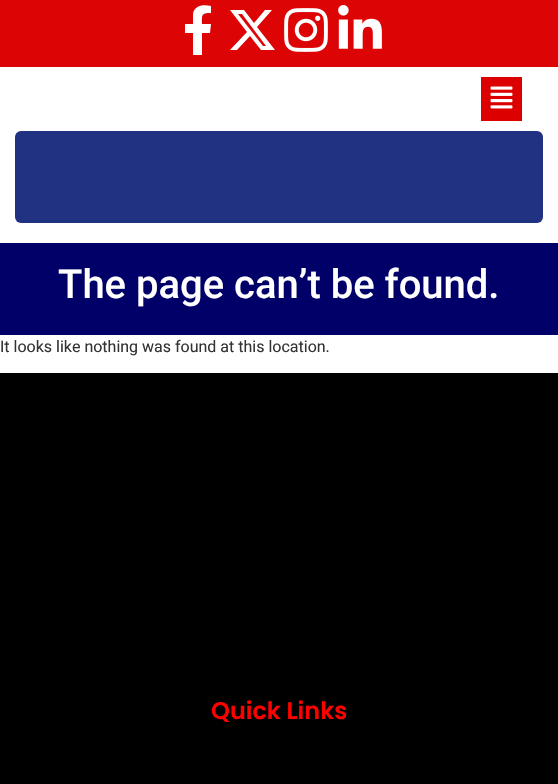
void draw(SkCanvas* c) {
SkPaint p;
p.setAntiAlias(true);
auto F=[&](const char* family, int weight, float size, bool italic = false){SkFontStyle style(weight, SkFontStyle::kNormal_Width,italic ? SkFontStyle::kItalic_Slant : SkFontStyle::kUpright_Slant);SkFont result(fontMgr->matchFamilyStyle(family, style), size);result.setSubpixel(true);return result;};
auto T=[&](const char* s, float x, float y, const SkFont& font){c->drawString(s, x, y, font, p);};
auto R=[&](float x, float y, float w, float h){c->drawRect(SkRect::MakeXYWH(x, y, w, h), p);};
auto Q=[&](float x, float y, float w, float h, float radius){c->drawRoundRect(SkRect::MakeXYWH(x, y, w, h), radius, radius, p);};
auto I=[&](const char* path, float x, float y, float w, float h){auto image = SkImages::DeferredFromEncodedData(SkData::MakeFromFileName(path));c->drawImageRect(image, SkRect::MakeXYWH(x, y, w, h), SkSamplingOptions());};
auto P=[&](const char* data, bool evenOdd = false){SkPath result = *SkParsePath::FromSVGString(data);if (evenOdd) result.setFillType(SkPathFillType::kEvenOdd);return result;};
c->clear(0xffffffff);
p.setColor(0xffdc0404);
R(0,0,558,67);
p.setColor(0xffffffff);
c->drawPath(P("M210 33l1-9h-9c0-9-1-11 9-11v-7c-7-2-17-1-18 8v10h-8v9h8v22h9v-22z"),p);
c->drawPath(P("M265 10h7l-15 17l18 23h-14l-11-14l-13 14h-7l17-18l-17-22h14l10 13zm-2 36h3l-24-32h-4z"),p);
I("1.png",284,8,44,44);
I("2.png",338,5,44,44);
p.setColor(0xffdd0001);
R(481,77,41,44);
I("3.png",490,86,23,23);
p.setColor(0xff223282);
Q(15,131,528,92,6);
p.setColor(0xff000068);
R(0,243,558,92);
auto f1 = F("Roboto",500,40);
p.setColor(0xffffffff);
T("The page can’t be found.",58,298,f1);
auto f2 = F("Roboto",400,16);
p.setColor(0xff333333);
T("It looks like nothing was found at this location.",0,352,f2);
p.setColor(0xff000000);
R(0,373,558,411);
auto f3 = F("Poppins",600,24);
p.setColor(0xffff0000);
T("Quick Links",211,719,f3);
}
